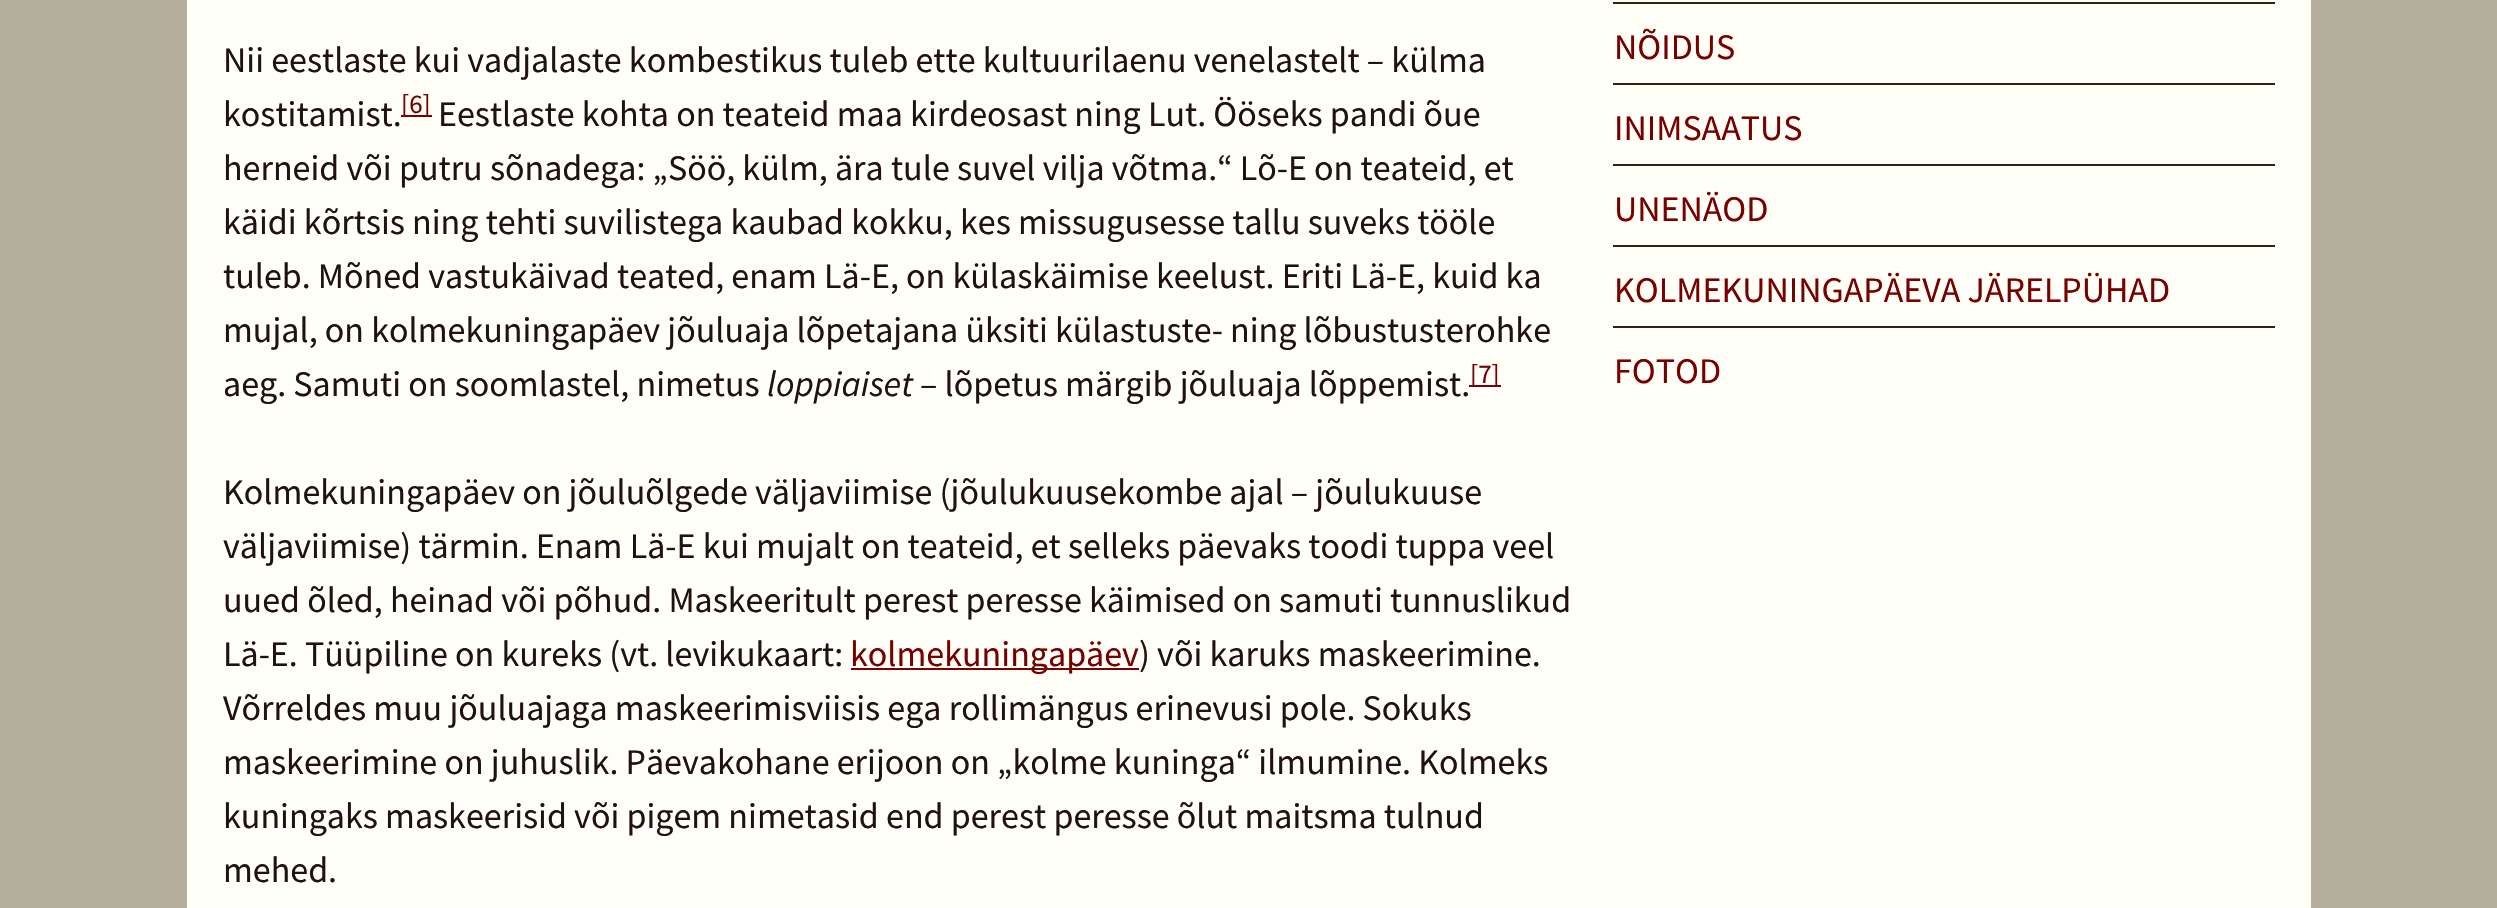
void draw(SkCanvas* c) {
SkPaint p;
p.setAntiAlias(true);
auto F=[&](const char* family, int weight, float size, bool italic = false){SkFontStyle style(weight, SkFontStyle::kNormal_Width,italic ? SkFontStyle::kItalic_Slant : SkFontStyle::kUpright_Slant);SkFont result(fontMgr->matchFamilyStyle(family, style), size);result.setSubpixel(true);return result;};
auto T=[&](const char* s, float x, float y, const SkFont& font){c->drawString(s, x, y, font, p);};
auto R=[&](float x, float y, float w, float h){c->drawRect(SkRect::MakeXYWH(x, y, w, h), p);};
c->clear(0xffb3ad9c);
p.setColor(0xfffffff7);
R(187,0,2124,908);
auto f1 = F("Source Sans Pro",400,36);
p.setColor(0xff221111);
T("Nii eestlaste kui vadjalaste kombestikus tuleb ette kultuurilaenu venelastelt – külma",223,72,f1);
T("kostitamist.",223,126,f1);
p.setColor(0xff770000);
R(401,115,31,2);
auto f2 = F("Source Sans Pro",400,27);
T("[6]",401,113,f2);
p.setColor(0xff221111);
T("Eestlaste kohta on teateid maa kirdeosast ning Lut. Ööseks pandi õue",438,126,f1);
T("herneid või putru sõnadega: „Söö, külm, ära tule suvel vilja võtma.“ Lõ-E on teateid, et",223,180,f1);
T("käidi kõrtsis ning tehti suvilistega kaubad kokku, kes missugusesse tallu suveks tööle",223,234,f1);
T("tuleb. Mõned vastukäivad teated, enam Lä-E, on külaskäimise keelust. Eriti Lä-E, kuid ka",223,288,f1);
T("mujal, on kolmekuningapäev jõuluaja lõpetajana üksiti külastuste- ning lõbustusterohke",223,342,f1);
T("aeg. Samuti on soomlastel, nimetus",223,396,f1);
auto f3 = F("Source Sans Pro",400,36,true);
T("loppiaiset",767,396,f3);
T("– lõpetus märgib jõuluaja lõppemist.",920,396,f1);
p.setColor(0xff770000);
R(1469,385,32,2);
T("[7]",1470,383,f2);
p.setColor(0xff221111);
T("Kolmekuningapäev on jõuluõlgede väljaviimise (jõulukuusekombe ajal – jõulukuuse",223,504,f1);
T("väljaviimise) tärmin. Enam Lä-E kui mujalt on teateid, et selleks päevaks toodi tuppa veel",223,558,f1);
T("uued õled, heinad või põhud. Maskeeritult perest peresse käimised on samuti tunnuslikud",223,612,f1);
T("Lä-E. Tüüpiline on kureks (vt. levikukaart:",223,666,f1);
p.setColor(0xff770000);
R(851,668,288,2);
T("kolmekuningapäev",850,666,f1);
p.setColor(0xff221111);
T(") või karuks maskeerimine.",1139,666,f1);
T("Võrreldes muu jõuluajaga maskeerimisviisis ega rollimängus erinevusi pole. Sokuks",223,720,f1);
T("maskeerimine on juhuslik. Päevakohane erijoon on „kolme kuninga“ ilmumine. Kolmeks",223,774,f1);
T("kuningaks maskeerisid või pigem nimetasid end perest peresse õlut maitsma tulnud",223,828,f1);
T("mehed.",223,882,f1);
p.setColor(0xff332211);
R(1613,2,662,2);
R(1613,83,662,2);
p.setColor(0xff770000);
T("NÕIDUS",1614,59,f1);
p.setColor(0xff332211);
R(1613,164,662,2);
p.setColor(0xff770000);
T("INIMSAATUS",1614,140,f1);
p.setColor(0xff332211);
R(1613,245,662,2);
p.setColor(0xff770000);
T("UNENÄOD",1614,221,f1);
p.setColor(0xff332211);
R(1613,326,662,2);
p.setColor(0xff770000);
T("KOLMEKUNINGAPÄEVA JÄRELPÜHAD",1614,302,f1);
T("FOTOD",1614,383,f1);
}
